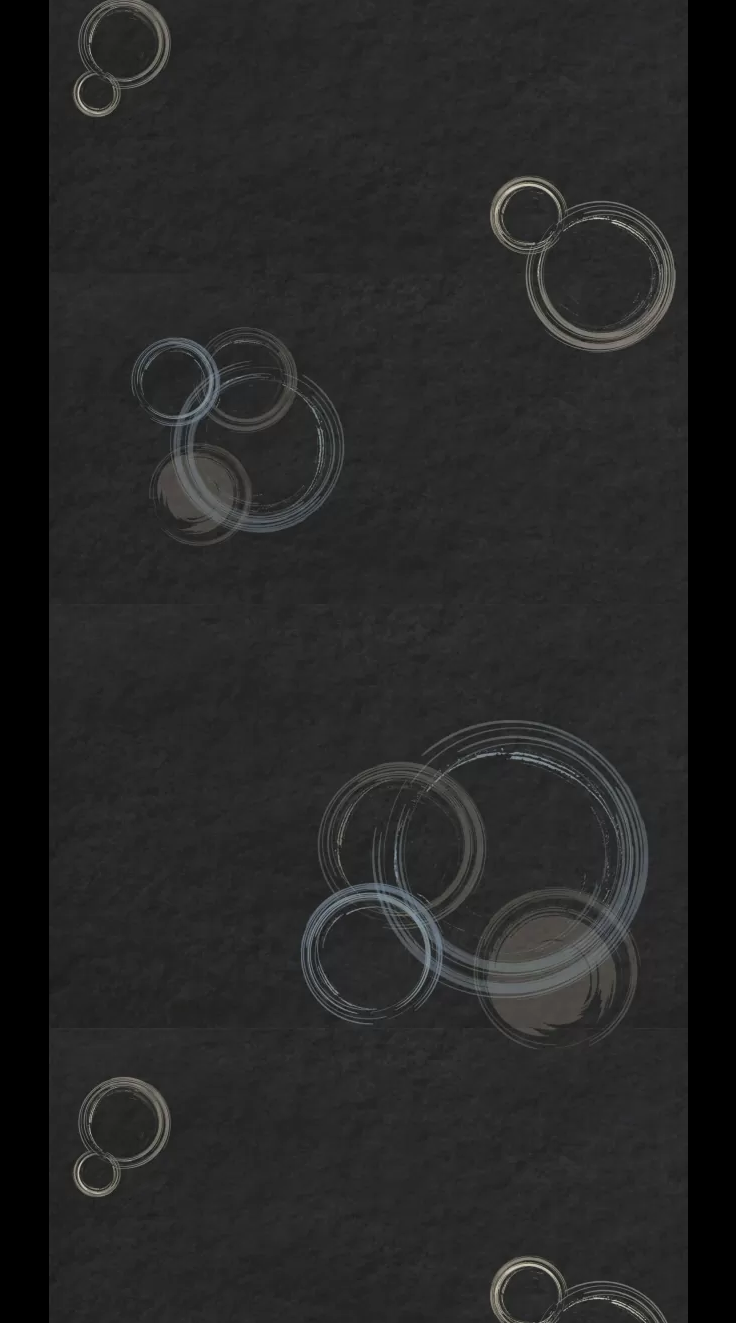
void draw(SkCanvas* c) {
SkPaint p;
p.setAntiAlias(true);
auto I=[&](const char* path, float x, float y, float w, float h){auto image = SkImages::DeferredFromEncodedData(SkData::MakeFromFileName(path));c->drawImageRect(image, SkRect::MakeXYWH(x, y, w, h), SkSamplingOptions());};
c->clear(0xff000000);
I("1.png",49,0,639,1323);
}
